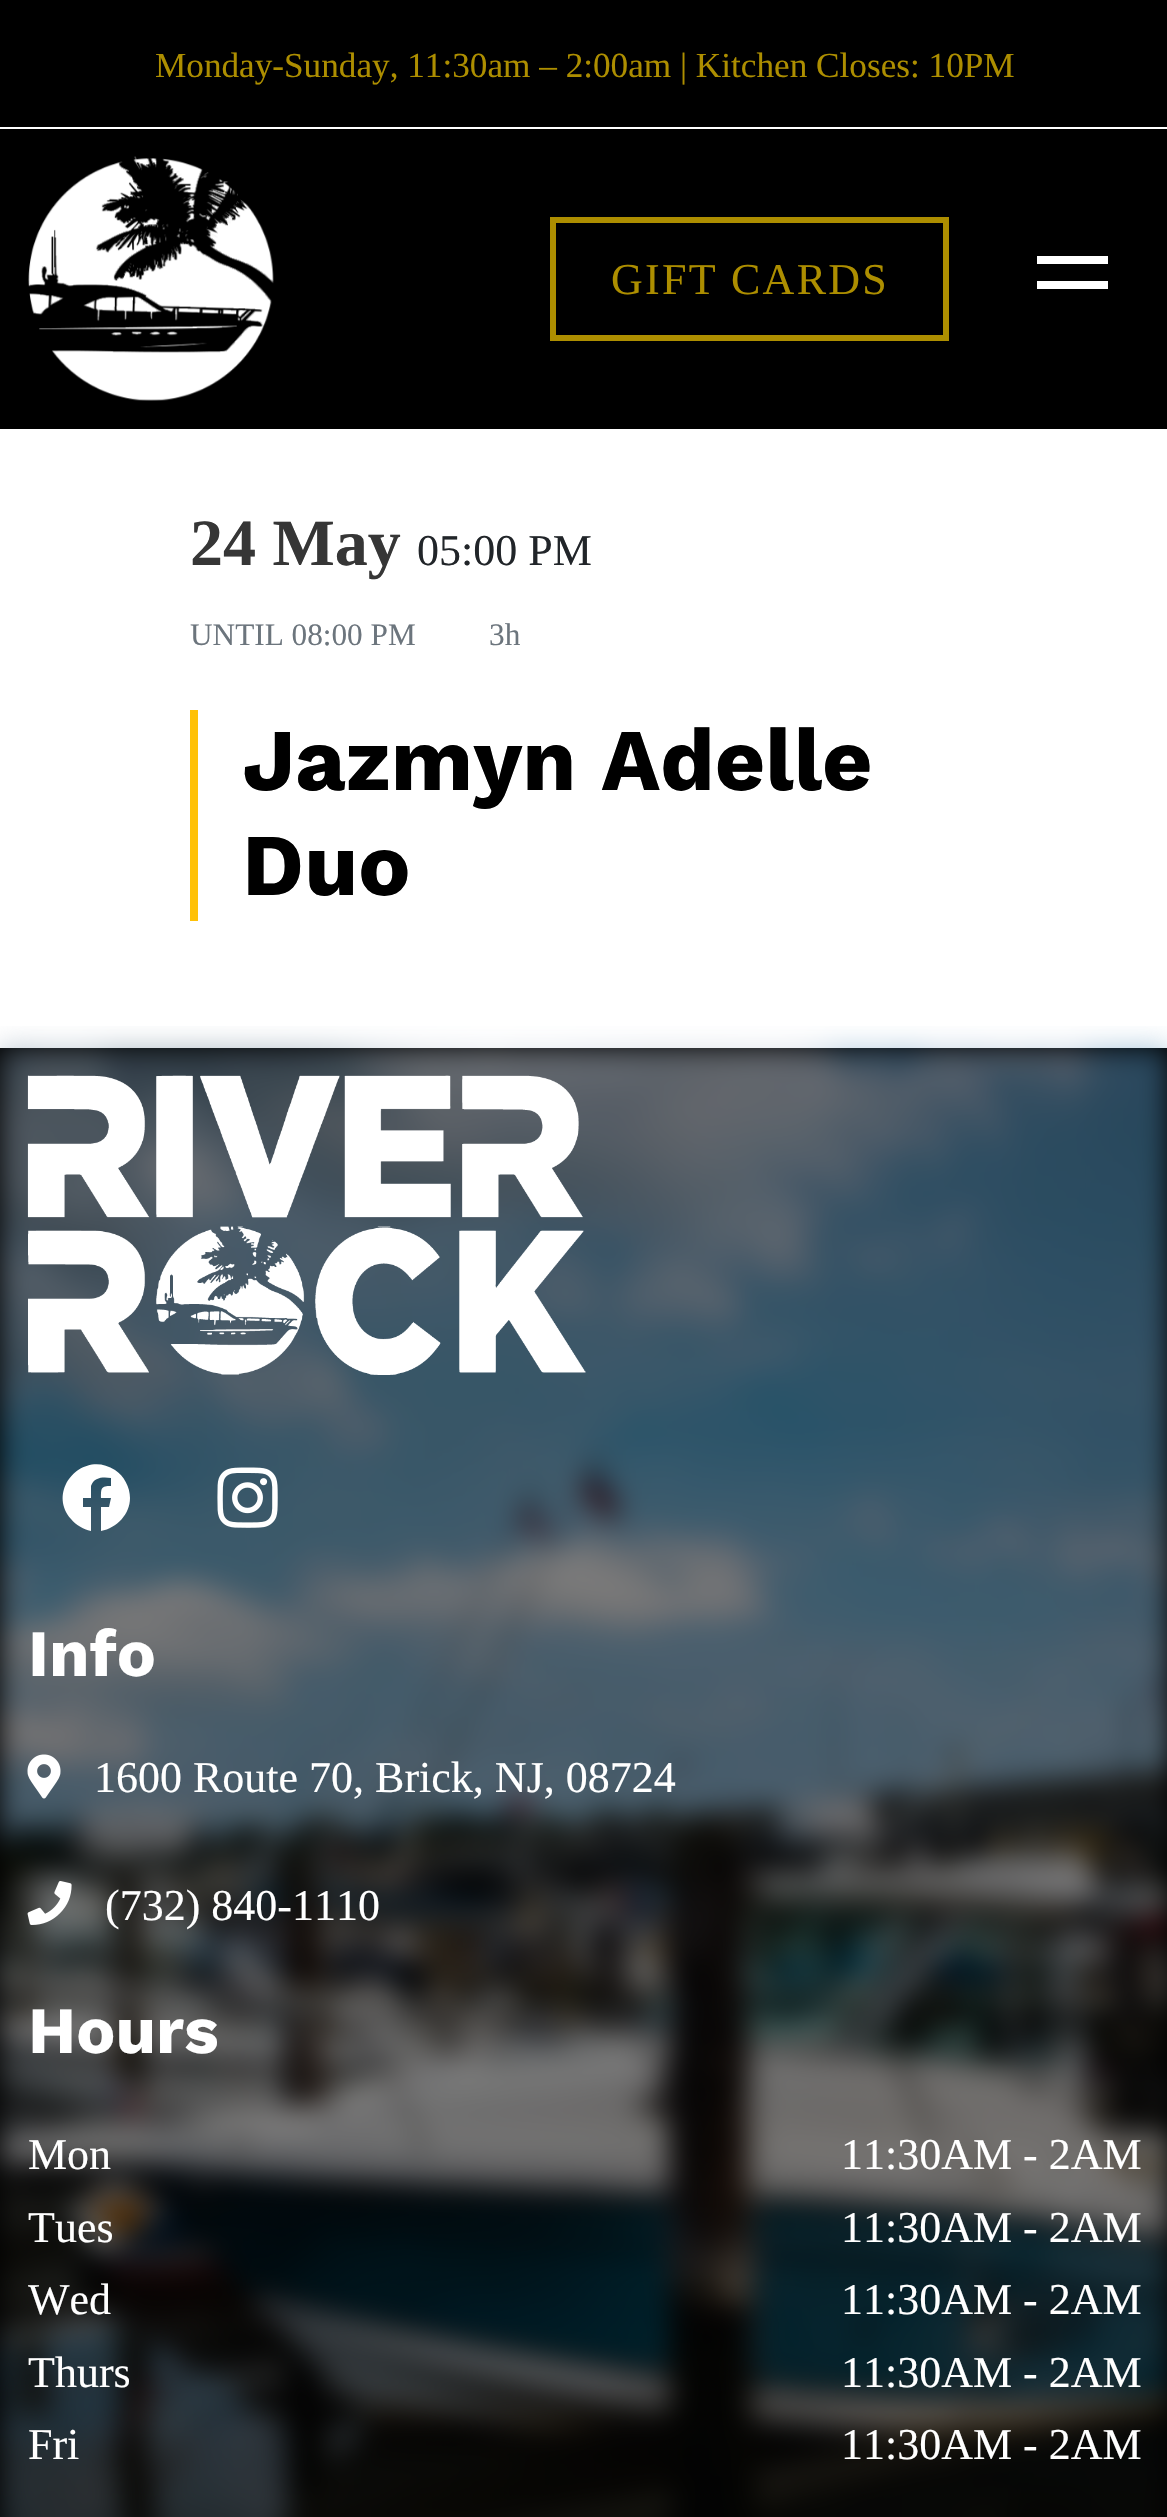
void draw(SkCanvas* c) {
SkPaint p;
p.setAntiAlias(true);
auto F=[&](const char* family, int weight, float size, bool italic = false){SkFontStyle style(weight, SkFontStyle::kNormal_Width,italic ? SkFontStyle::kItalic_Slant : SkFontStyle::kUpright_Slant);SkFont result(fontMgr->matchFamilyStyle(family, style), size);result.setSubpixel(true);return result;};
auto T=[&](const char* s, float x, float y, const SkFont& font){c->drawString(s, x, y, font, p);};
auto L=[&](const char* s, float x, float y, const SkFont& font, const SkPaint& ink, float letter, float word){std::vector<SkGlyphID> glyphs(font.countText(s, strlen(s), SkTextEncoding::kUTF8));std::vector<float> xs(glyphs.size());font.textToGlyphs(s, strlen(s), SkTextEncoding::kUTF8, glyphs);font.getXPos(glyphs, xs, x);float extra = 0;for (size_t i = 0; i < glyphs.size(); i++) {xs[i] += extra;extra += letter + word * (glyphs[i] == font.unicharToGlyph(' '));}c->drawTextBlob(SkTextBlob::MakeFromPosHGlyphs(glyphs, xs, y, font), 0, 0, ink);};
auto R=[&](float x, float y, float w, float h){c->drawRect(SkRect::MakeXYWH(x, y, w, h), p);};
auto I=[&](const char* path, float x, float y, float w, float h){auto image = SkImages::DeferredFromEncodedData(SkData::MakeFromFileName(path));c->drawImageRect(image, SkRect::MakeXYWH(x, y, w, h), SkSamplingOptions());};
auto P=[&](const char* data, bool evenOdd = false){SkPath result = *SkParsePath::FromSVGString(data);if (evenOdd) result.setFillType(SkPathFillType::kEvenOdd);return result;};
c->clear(0xffffffff);
p.setColor(0xff000000);
R(0,0,1167,127);
auto f1 = F("Liberation Serif",400,35.2);
p.setColor(0xffad8e00);
T("Monday-Sunday, 11:30am – 2:00am | Kitchen Closes: 10PM",155,77,f1);
p.setColor(0xff000000);
R(0,129,1167,300);
I("1.png",28,156,246,245);
p.setStroke(true);
p.setStrokeWidth(6);
p.setColor(0xffad8e00);
c->drawRect(SkRect::MakeXYWH(553,220,393,118),p);
auto f2 = F("Liberation Serif",400,44);
p.setStroke(false);
L("GIFT CARDS",611,294,f2,p,2.25,0);
p.setColor(0xffffffff);
R(1037,256,71,8);
R(1037,281,71,8);
auto f3 = F("Liberation Serif",700,66);
p.setColor(0xff363636);
T("24 May",190,565,f3);
p.setColor(0xff212529);
T("05:00 PM",417,565,f2);
auto f4 = F("Liberation Serif",400,31.25);
p.setColor(0xff6c757d);
T("UNTIL 08:00 PM",190,645,f4);
T("3h",489,645,f4);
p.setColor(0xffffc107);
R(190,710,8,211);
auto f5 = F("Kantumruy Pro",700,88);
p.setColor(0xff000000);
T("Jazmyn Adelle",242,790,f5);
T("Duo",242,895,f5);
R(0,1048,1167,1469);
I("2.png",0,1026,1167,1491);
I("3.png",27,1075,559,300);
p.setColor(0xffffffff);
c->drawPath(P("M130 1498c0 16-13 30-29 33v-24h8l2-9h-10c0-10 0-12 10-12v-8c-8-1-17-1-20 8v12h-8v9h8v24c-8-2-15-6-20-12c-25-29 12-70 44-49c9 6 15 17 15 28z"),p);
I("4.png",217,1467,61,61);
auto f6 = F("Kantumruy Pro",700,66);
T("Info",28,1676,f6);
I("5.png",27,1754,34,45);
T("1600 Route 70, Brick, NJ, 08724",94,1792,f2);
I("6.png",27,1881,45,44);
T("(732) 840-1110",105,1920,f2);
T("Hours",28,2053,f6);
T("Mon",28,2169,f2);
T("11:30AM - 2AM",841,2169,f2);
T("Tues",28,2242,f2);
T("11:30AM - 2AM",841,2242,f2);
T("Wed",28,2314,f2);
T("11:30AM - 2AM",841,2314,f2);
T("Thurs",28,2387,f2);
T("11:30AM - 2AM",841,2387,f2);
T("Fri",28,2459,f2);
T("11:30AM - 2AM",841,2459,f2);
}
